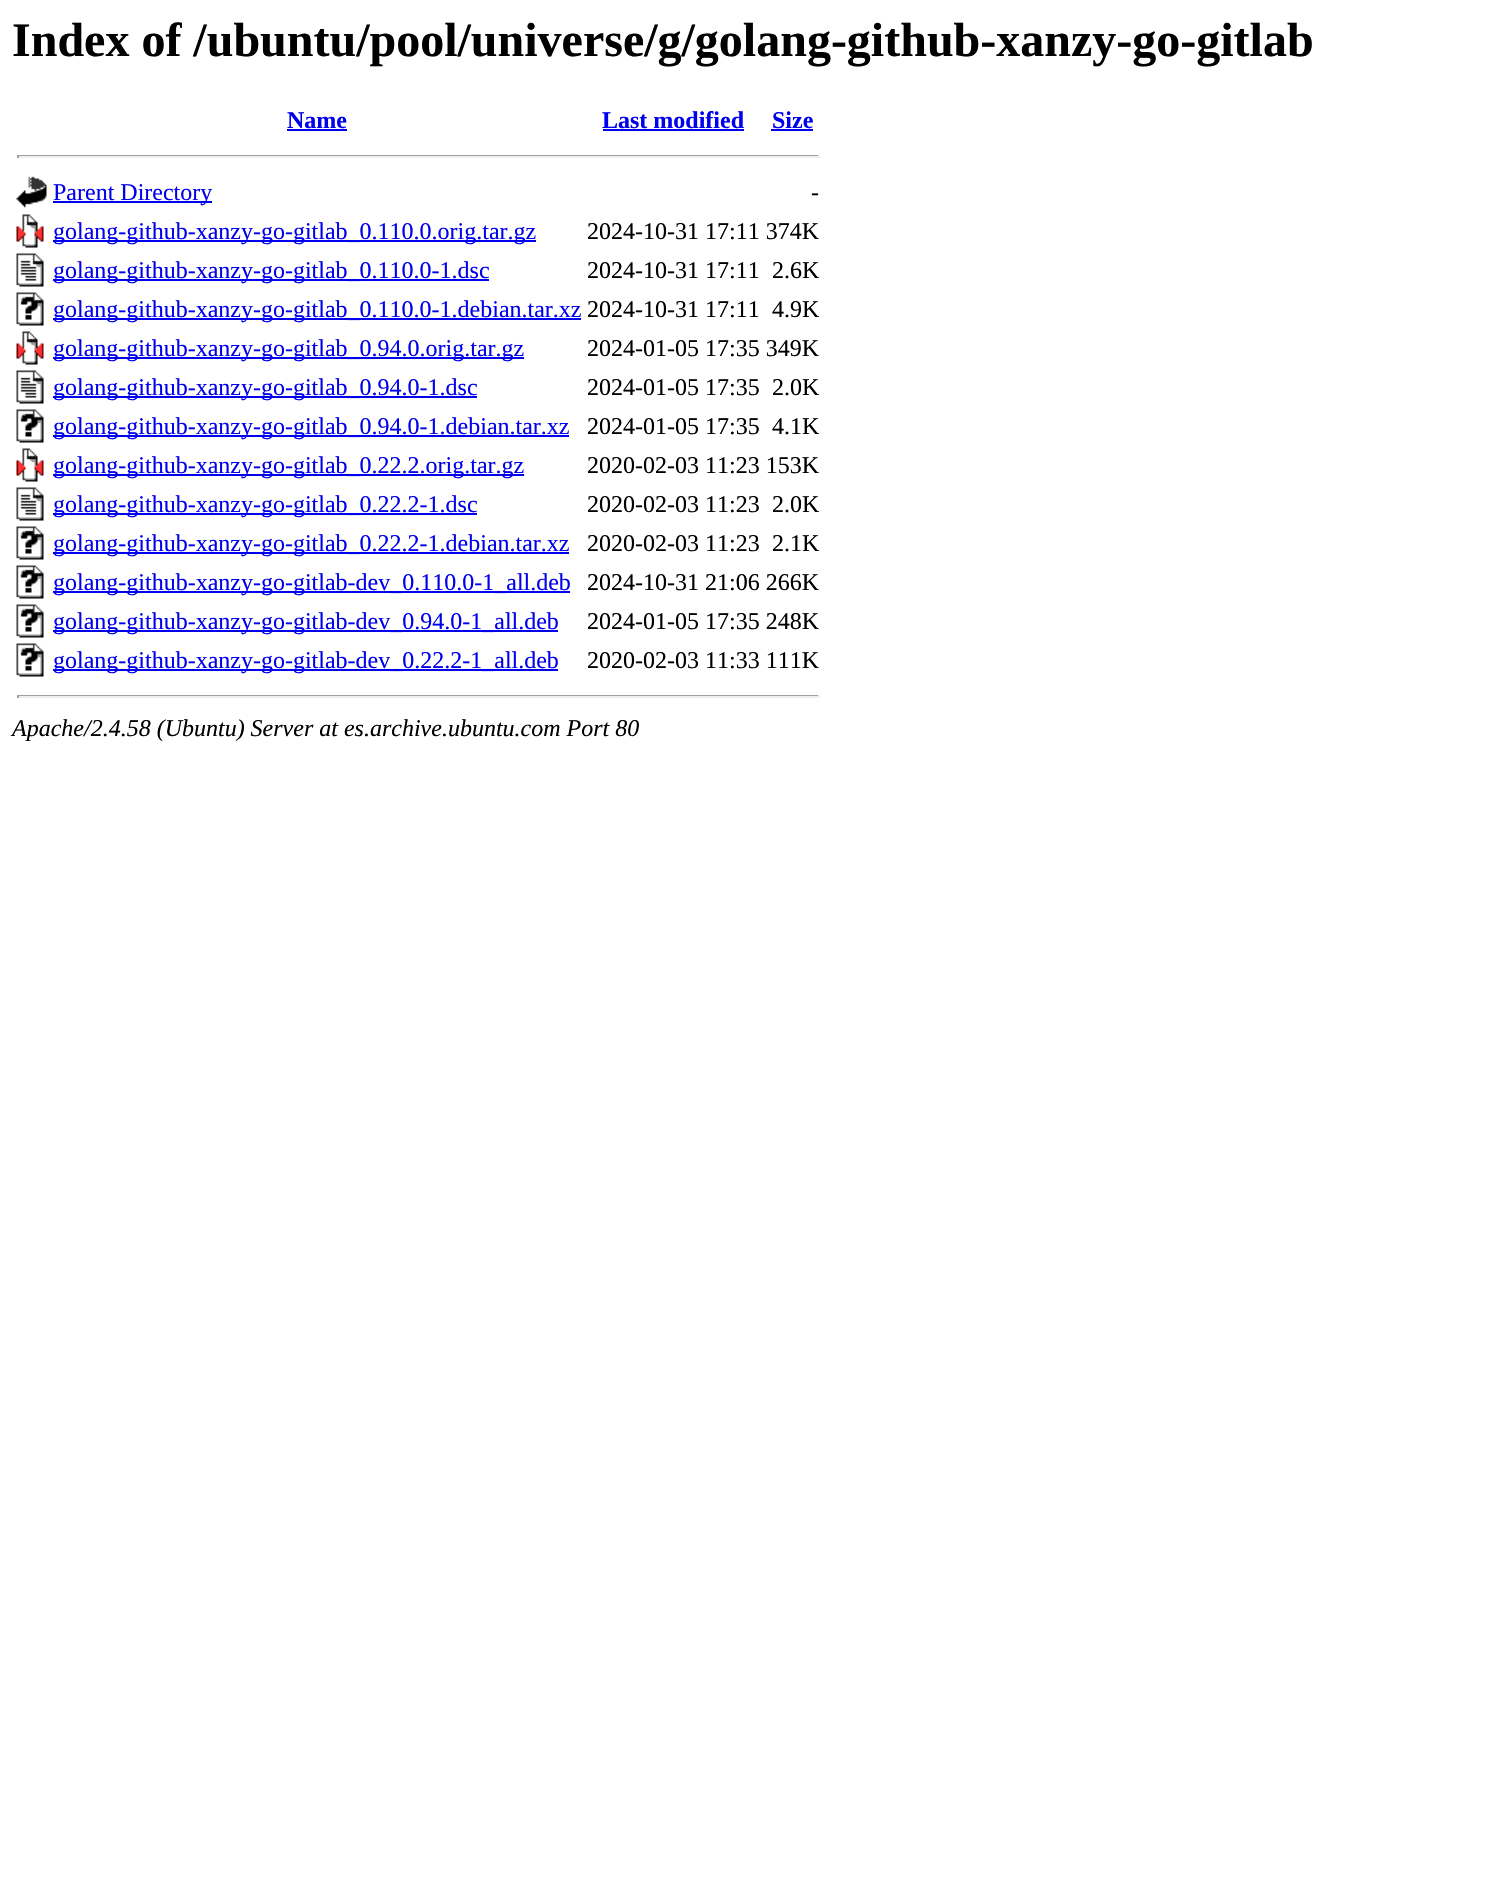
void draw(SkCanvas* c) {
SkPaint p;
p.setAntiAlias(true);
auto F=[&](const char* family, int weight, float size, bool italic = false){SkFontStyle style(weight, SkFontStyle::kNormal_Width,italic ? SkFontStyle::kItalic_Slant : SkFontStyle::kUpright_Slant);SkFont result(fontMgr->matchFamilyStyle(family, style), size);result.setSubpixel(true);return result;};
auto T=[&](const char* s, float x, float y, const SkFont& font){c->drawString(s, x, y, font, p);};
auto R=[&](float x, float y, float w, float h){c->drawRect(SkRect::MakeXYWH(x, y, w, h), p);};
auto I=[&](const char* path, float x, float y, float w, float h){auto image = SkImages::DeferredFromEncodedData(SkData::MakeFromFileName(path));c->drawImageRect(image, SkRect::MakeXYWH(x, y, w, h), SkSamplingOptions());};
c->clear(0xffffffff);
auto f1 = F("Liberation Serif",700,48);
p.setColor(0xff000000);
T("Index of /ubuntu/pool/universe/g/golang-github-xanzy-go-gitlab",12,56,f1);
auto f2 = F("Liberation Serif",700,24);
p.setColor(0xff0000ee);
T("Name",287,128,f2);
R(287,129,60,2);
T("Last modified",602,128,f2);
R(603,129,141,2);
T("Size",772,128,f2);
R(771,129,42,2);
p.setColor(0xff9f9f9f);
R(17,155,802,1);
p.setColor(0xffeeeeee);
R(818,155,2,3);
R(17,156,802,2);
p.setColor(0xff9f9f9f);
R(17,155,2,3);
I("1.png",16,176,31,32);
p.setColor(0xff0000ee);
R(53,201,159,2);
auto f3 = F("Liberation Serif",400,24);
T("Parent Directory",53,200,f3);
p.setColor(0xff000000);
T("-",811,200,f3);
I("2.png",16,214,28,34);
p.setColor(0xff0000ee);
R(53,240,483,2);
T("golang-github-xanzy-go-gitlab_0.110.0.orig.tar.gz",53,239,f3);
p.setColor(0xff000000);
T("2024-10-31 17:11 374K",587,239,f3);
I("3.png",16,253,28,34);
p.setColor(0xff0000ee);
R(53,279,436,2);
T("golang-github-xanzy-go-gitlab_0.110.0-1.dsc",53,278,f3);
p.setColor(0xff000000);
T("2024-10-31 17:11",587,278,f3);
T("2.6K",772,278,f3);
I("4.png",16,292,28,34);
p.setColor(0xff0000ee);
R(53,318,528,2);
T("golang-github-xanzy-go-gitlab_0.110.0-1.debian.tar.xz",53,317,f3);
p.setColor(0xff000000);
T("2024-10-31 17:11",587,317,f3);
T("4.9K",772,317,f3);
I("2.png",16,331,28,34);
p.setColor(0xff0000ee);
R(53,357,471,2);
T("golang-github-xanzy-go-gitlab_0.94.0.orig.tar.gz",53,356,f3);
p.setColor(0xff000000);
T("2024-01-05 17:35 349K",587,356,f3);
I("3.png",16,370,28,34);
p.setColor(0xff0000ee);
R(53,396,424,2);
T("golang-github-xanzy-go-gitlab_0.94.0-1.dsc",53,395,f3);
p.setColor(0xff000000);
T("2024-01-05 17:35",587,395,f3);
T("2.0K",772,395,f3);
I("4.png",16,409,28,34);
p.setColor(0xff0000ee);
R(53,435,516,2);
T("golang-github-xanzy-go-gitlab_0.94.0-1.debian.tar.xz",53,434,f3);
p.setColor(0xff000000);
T("2024-01-05 17:35",587,434,f3);
T("4.1K",772,434,f3);
I("2.png",16,448,28,34);
p.setColor(0xff0000ee);
R(53,474,471,2);
T("golang-github-xanzy-go-gitlab_0.22.2.orig.tar.gz",53,473,f3);
p.setColor(0xff000000);
T("2020-02-03 11:23 153K",587,473,f3);
I("3.png",16,487,28,34);
p.setColor(0xff0000ee);
R(53,513,424,2);
T("golang-github-xanzy-go-gitlab_0.22.2-1.dsc",53,512,f3);
p.setColor(0xff000000);
T("2020-02-03 11:23",587,512,f3);
T("2.0K",772,512,f3);
I("4.png",16,526,28,34);
p.setColor(0xff0000ee);
R(53,552,516,2);
T("golang-github-xanzy-go-gitlab_0.22.2-1.debian.tar.xz",53,551,f3);
p.setColor(0xff000000);
T("2020-02-03 11:23",587,551,f3);
T("2.1K",772,551,f3);
I("4.png",16,565,28,34);
p.setColor(0xff0000ee);
R(53,591,517,2);
T("golang-github-xanzy-go-gitlab-dev_0.110.0-1_all.deb",53,590,f3);
p.setColor(0xff000000);
T("2024-10-31 21:06 266K",587,590,f3);
I("4.png",16,604,28,34);
p.setColor(0xff0000ee);
R(53,630,505,2);
T("golang-github-xanzy-go-gitlab-dev_0.94.0-1_all.deb",53,629,f3);
p.setColor(0xff000000);
T("2024-01-05 17:35 248K",587,629,f3);
I("4.png",16,643,28,34);
p.setColor(0xff0000ee);
R(53,669,505,2);
T("golang-github-xanzy-go-gitlab-dev_0.22.2-1_all.deb",53,668,f3);
p.setColor(0xff000000);
T("2020-02-03 11:33 111K",587,668,f3);
p.setColor(0xff9f9f9f);
R(17,695,802,1);
p.setColor(0xffeeeeee);
R(818,695,2,3);
R(17,696,802,2);
p.setColor(0xff9f9f9f);
R(17,695,2,3);
auto f4 = F("Liberation Serif",400,24,true);
p.setColor(0xff000000);
T("Apache/2.4.58 (Ubuntu) Server at es.archive.ubuntu.com Port 80",12,736,f4);
}
